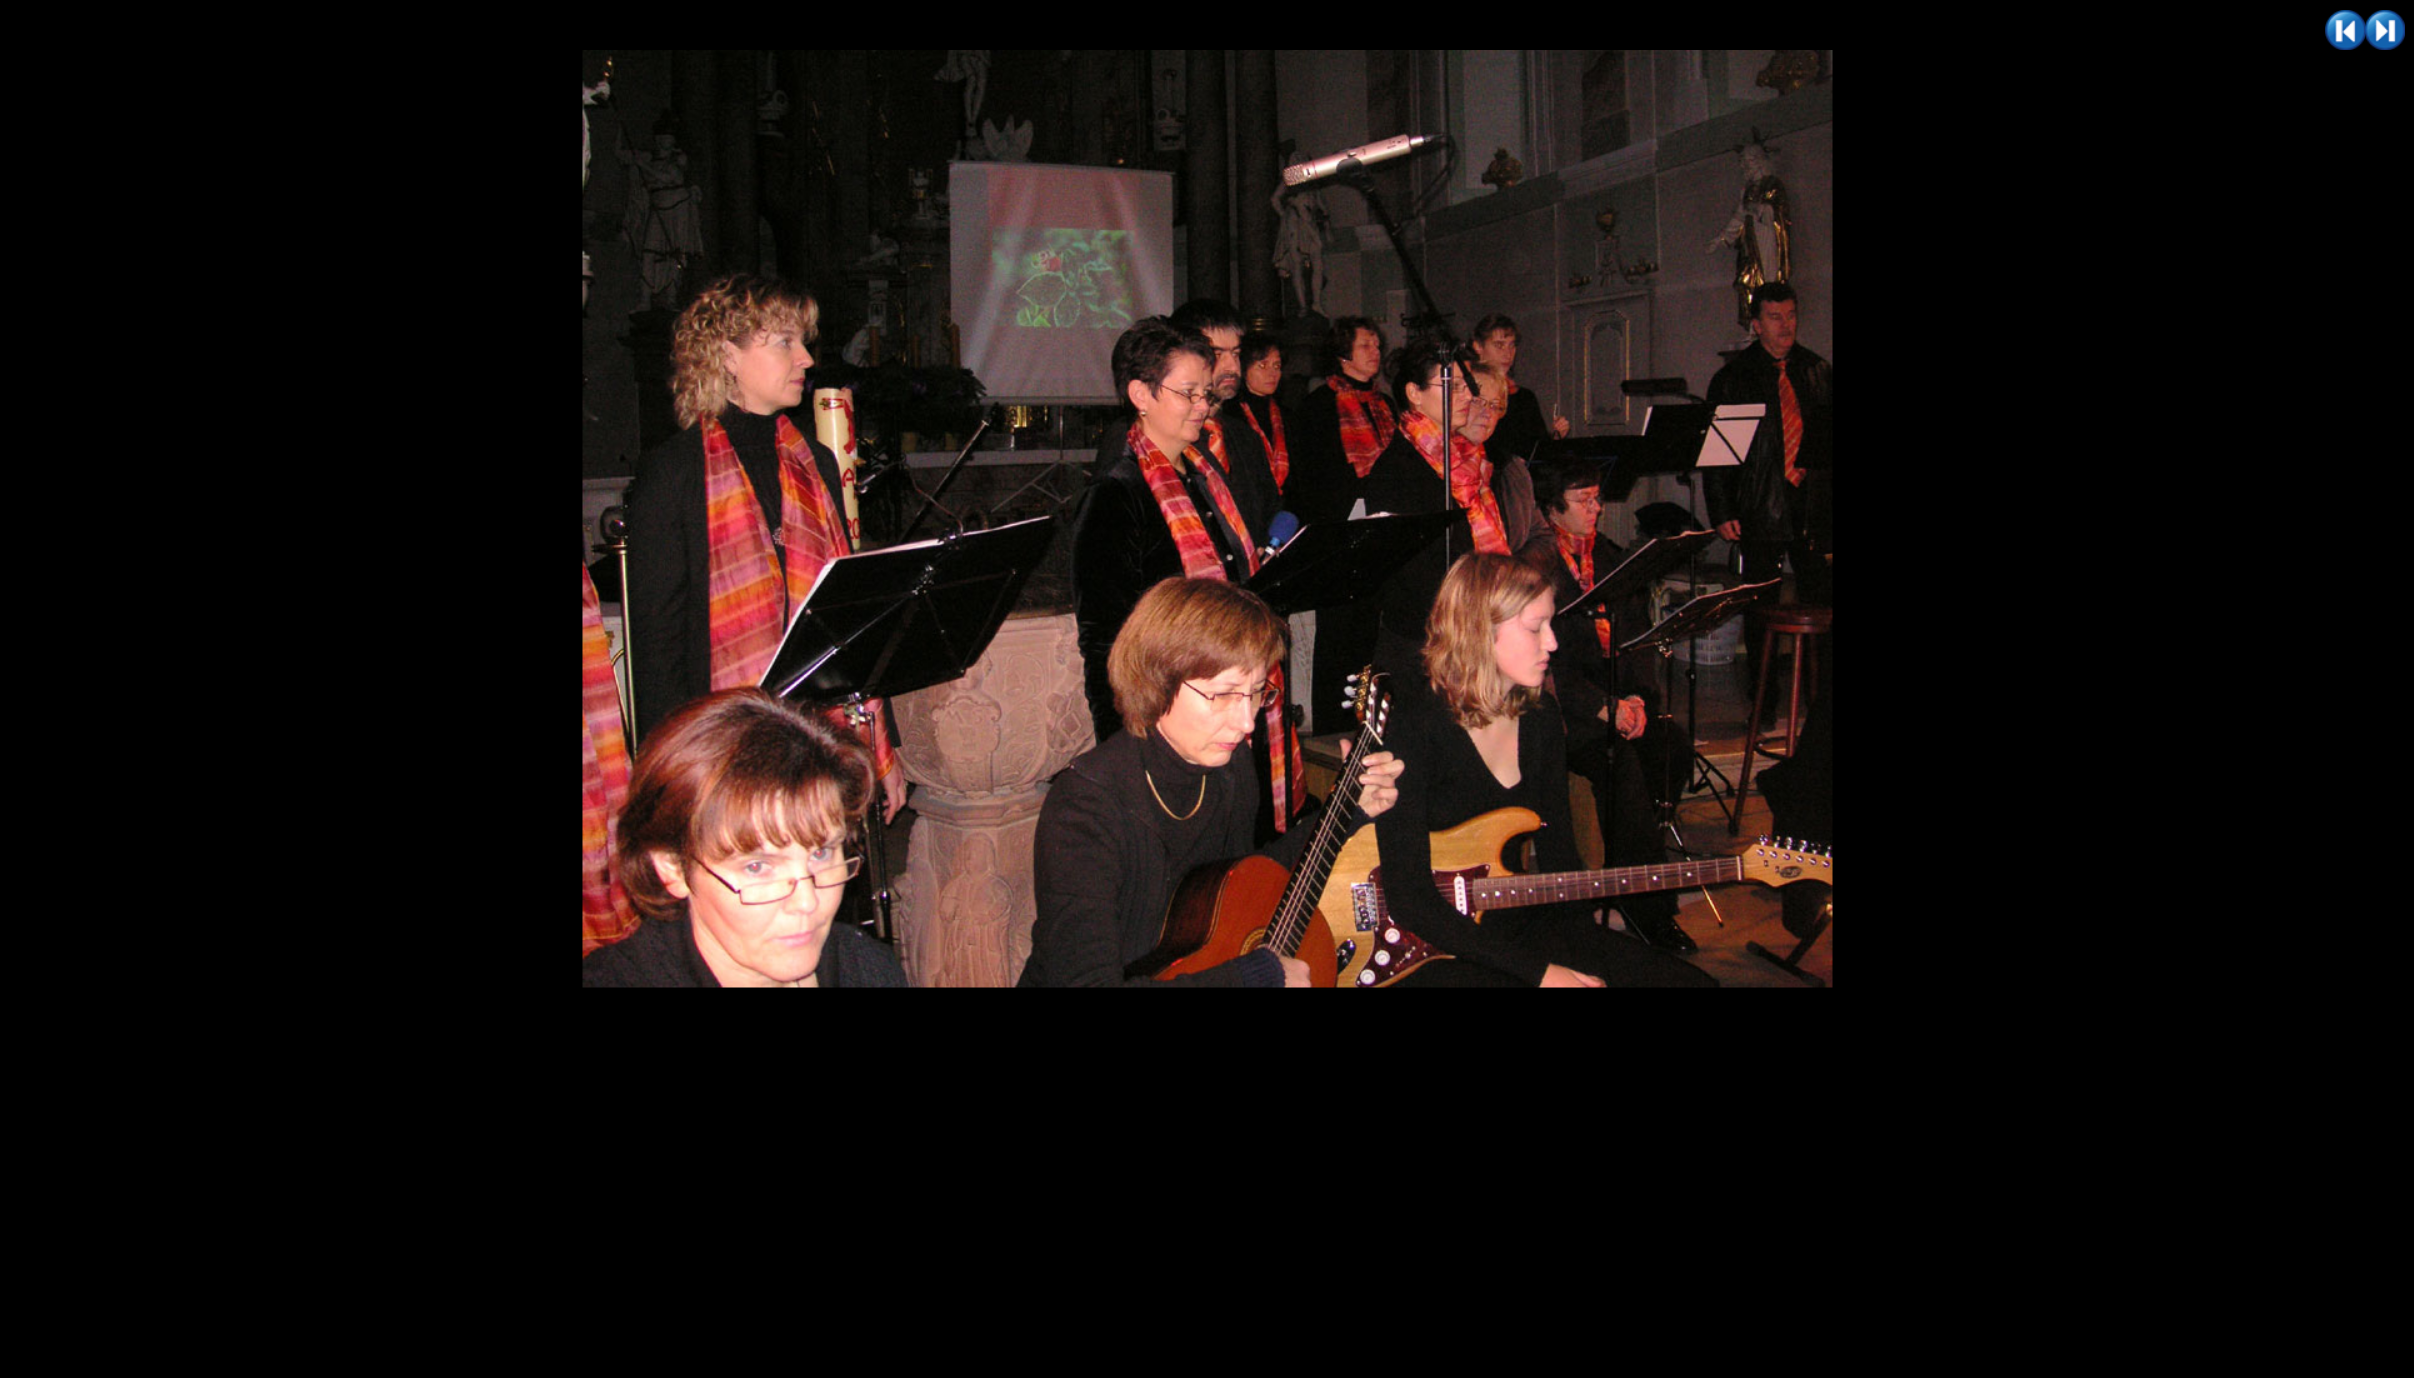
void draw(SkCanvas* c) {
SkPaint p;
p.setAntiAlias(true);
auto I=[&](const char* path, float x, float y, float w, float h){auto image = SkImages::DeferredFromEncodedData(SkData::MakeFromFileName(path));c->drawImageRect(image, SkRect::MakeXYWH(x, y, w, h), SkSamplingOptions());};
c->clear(0xff000000);
I("1.png",2325,10,40,40);
I("2.png",2365,10,40,40);
I("3.png",582,50,1251,938);
}
